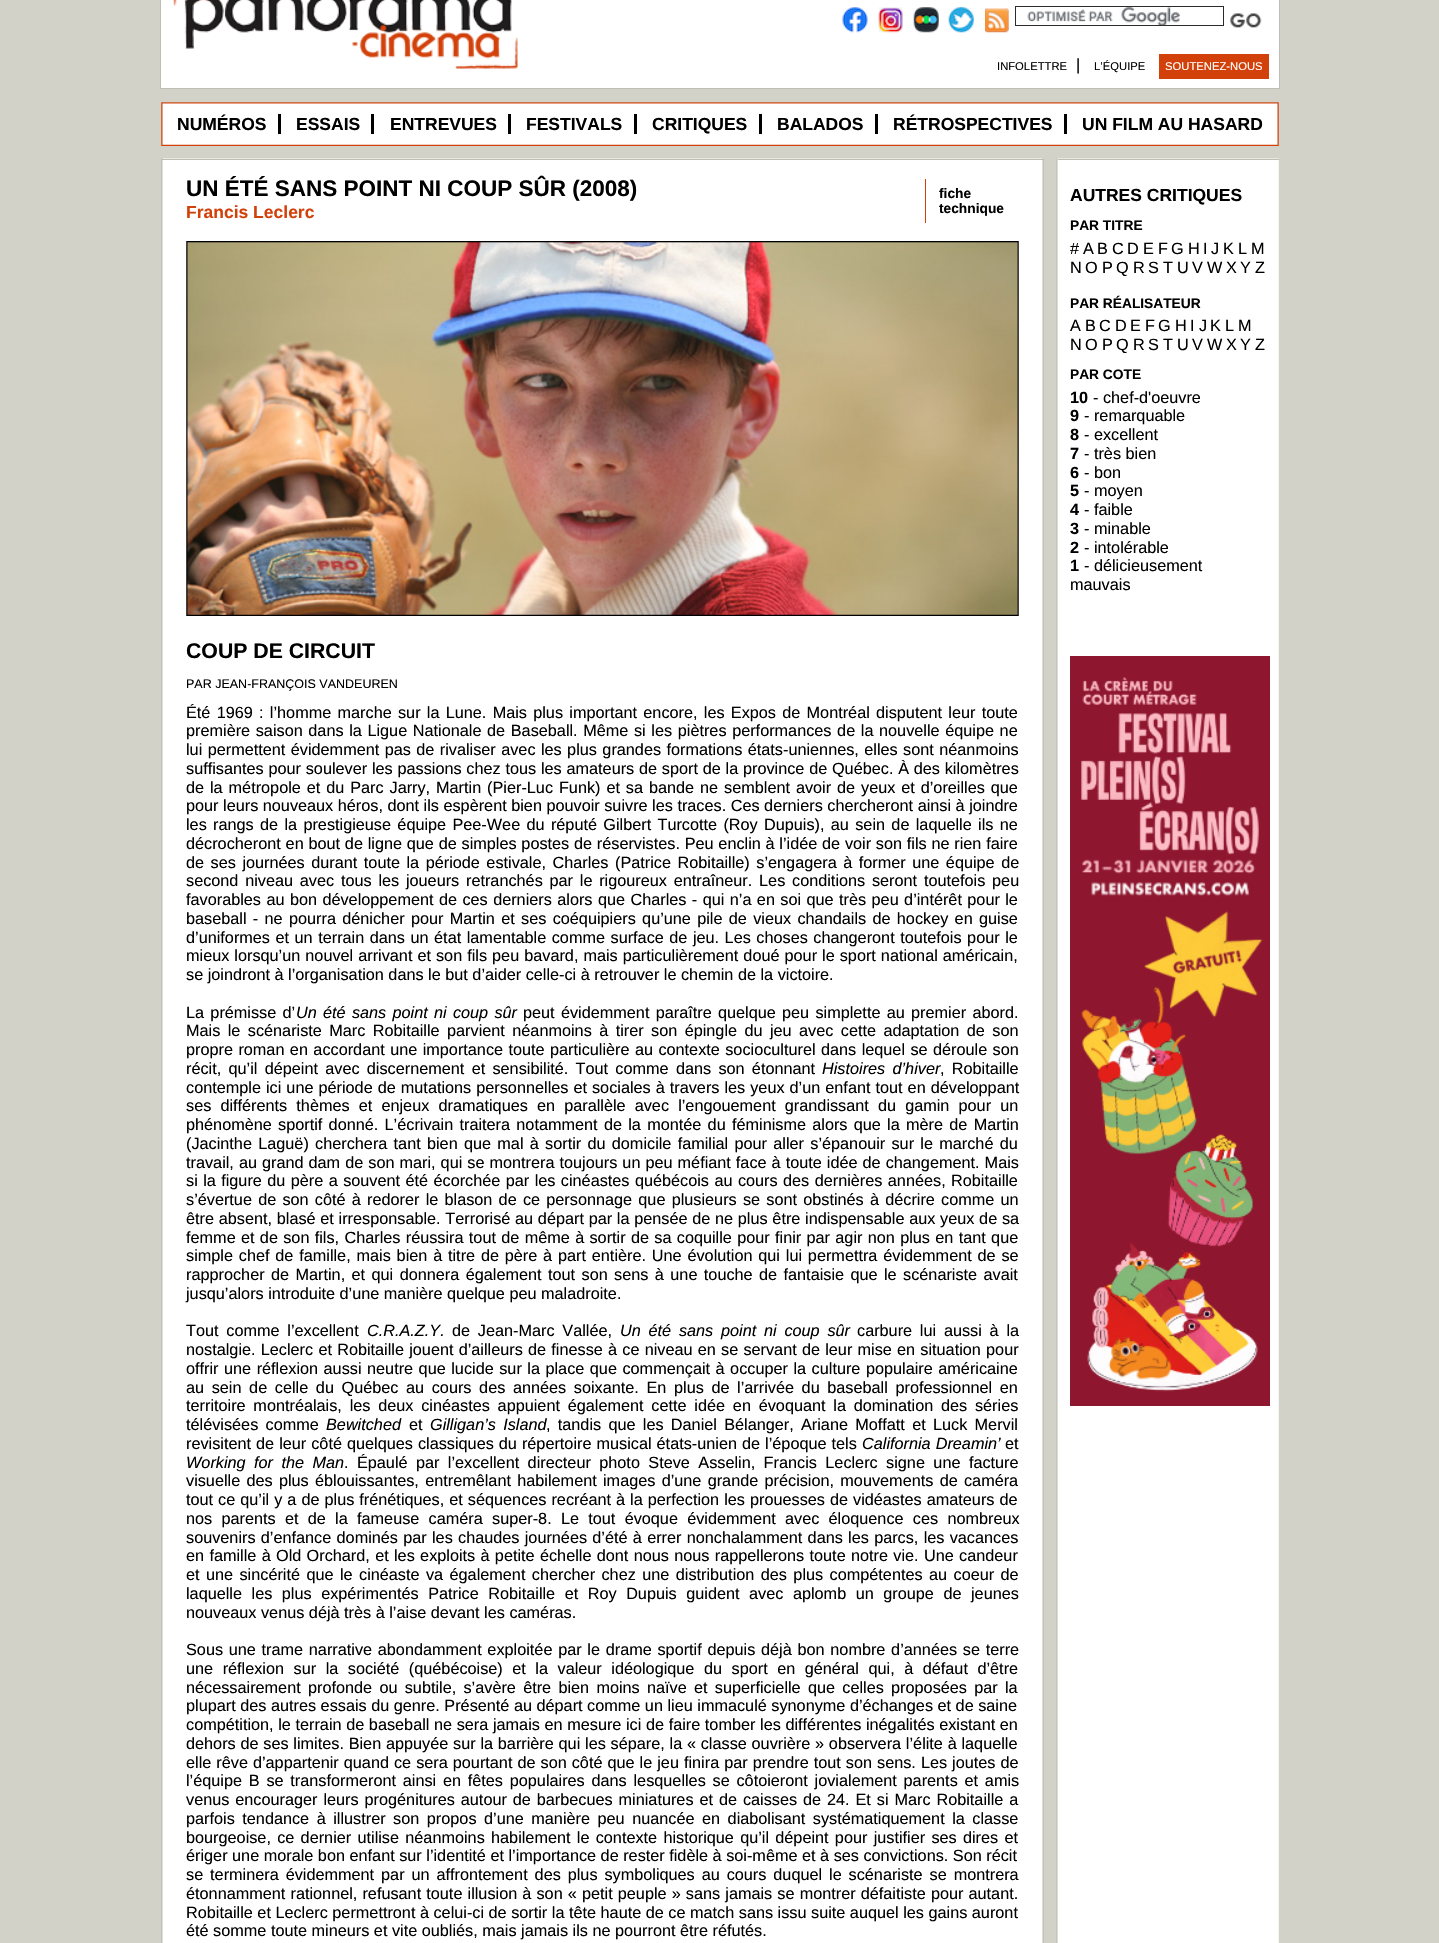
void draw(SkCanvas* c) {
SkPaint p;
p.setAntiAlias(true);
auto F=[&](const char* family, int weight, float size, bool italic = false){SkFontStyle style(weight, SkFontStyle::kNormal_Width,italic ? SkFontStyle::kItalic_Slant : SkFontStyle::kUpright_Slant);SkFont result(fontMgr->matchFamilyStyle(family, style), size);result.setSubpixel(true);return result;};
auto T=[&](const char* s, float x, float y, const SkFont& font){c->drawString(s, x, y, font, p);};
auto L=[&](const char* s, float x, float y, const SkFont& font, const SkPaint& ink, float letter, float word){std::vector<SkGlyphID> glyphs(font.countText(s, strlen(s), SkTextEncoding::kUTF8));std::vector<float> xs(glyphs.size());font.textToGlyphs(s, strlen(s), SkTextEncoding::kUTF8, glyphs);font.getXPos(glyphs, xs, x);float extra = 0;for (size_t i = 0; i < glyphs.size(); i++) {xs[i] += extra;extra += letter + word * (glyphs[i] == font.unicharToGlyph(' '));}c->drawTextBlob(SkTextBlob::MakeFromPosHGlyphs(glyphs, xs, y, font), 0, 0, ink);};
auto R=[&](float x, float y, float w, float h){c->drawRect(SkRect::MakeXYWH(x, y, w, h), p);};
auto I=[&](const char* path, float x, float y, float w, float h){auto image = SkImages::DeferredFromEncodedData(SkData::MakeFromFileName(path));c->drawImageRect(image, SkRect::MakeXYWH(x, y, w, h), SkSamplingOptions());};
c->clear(0xffd2d2c8);
p.setColor(0xffffffff);
c->drawRect(SkRect::MakeXYWH(160.5,-.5,1119,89),p);
p.setStroke(true);
p.setStrokeWidth(1);
p.setColor(0xffbebeb4);
c->drawRect(SkRect::MakeXYWH(160.5,-.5,1119,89),p);
I("1.png",173,0,345,69);
I("2.png",842,7,26,26);
I("3.png",878,7,25,26);
I("4.png",913,7,26,26);
I("5.png",948,7,26,26);
I("6.png",985,8,24,25);
I("7.png",1027,7,153,18);
p.setColor(0xff2b2b2b);
c->drawRect(SkRect::MakeXYWH(1015.5,6.5,208,19),p);
I("8.png",1230,6,32,29);
auto f1 = F("Liberation Sans",400,11.25);
p.setStroke(false);
p.setColor(0xff000000);
T("INFOLETTRE",997,70,f1);
auto f2 = F("Liberation Sans",400,16.25);
T("|",1076,70,f2);
T("L’ÉQUIPE",1094,70,f1);
p.setColor(0xffd24109);
R(1159,54,110,25);
p.setColor(0xffffffff);
T("SOUTENEZ-NOUS",1165,70,f1);
I("9.png",161,102,1118,44);
auto f3 = F("Liberation Sans",700,17.5);
p.setColor(0xff000000);
T("NUMÉROS",177,130,f3);
R(278,114,3,20);
T("ESSAIS",296,130,f3);
R(371,114,3,20);
T("ENTREVUES",390,130,f3);
R(508,114,3,20);
T("FESTIVALS",526,130,f3);
R(634,114,3,20);
T("CRITIQUES",652,130,f3);
R(759,114,3,20);
T("BALADOS",777,130,f3);
R(875,114,3,20);
T("RÉTROSPECTIVES",893,130,f3);
R(1064,114,3,20);
T("UN FILM AU HASARD",1082,130,f3);
I("10.png",161,158,1118,1785);
p.setColor(0xffbebeb4);
R(161,159,883,1);
auto f4 = F("Liberation Sans",700,22.5);
p.setColor(0xff000000);
T("UN ÉTÉ SANS POINT NI COUP SÛR (2008)",186,196,f4);
p.setColor(0xffd2410a);
T("Francis Leclerc",186,218,f3);
R(925,179,1,44);
auto f5 = F("Liberation Sans",700,13.75);
p.setColor(0xff000000);
T("fiche",939,198,f5);
T("technique",939,213,f5);
I("11.png",186,241,833,375);
auto f6 = F("Liberation Sans",700,21.25);
T("COUP DE CIRCUIT",186,658,f6);
auto f7 = F("Liberation Sans",400,12.5);
T("PAR JEAN-FRANÇOIS VANDEUREN",186,688,f7);
L("Été 1969 : l’homme marche sur la Lune. Mais plus important encore, les Expos de Montréal disputent leur toute",186,718,f2,p,0,1.75);
L("première saison dans la Ligue Nationale de Baseball. Même si les piètres performances de la nouvelle équipe ne",186,736,f2,p,0,1.1);
L("lui permettent évidemment pas de rivaliser avec les plus grandes formations états-uniennes, elles sont néanmoins",186,755,f2,p,0,.9);
L("suffisantes pour soulever les passions chez tous les amateurs de sport de la province de Québec. À des kilomètres",186,774,f2,p,0,.25);
L("de la métropole et du Parc Jarry, Martin (Pier-Luc Funk) et sa bande ne semblent avoir de yeux et d’oreilles que",186,793,f2,p,0,1.4);
T("pour leurs nouveaux héros, dont ils espèrent bien pouvoir suivre les traces. Ces derniers chercheront ainsi à joindre",186,811,f2);
L("les rangs de la prestigieuse équipe Pee-Wee du réputé Gilbert Turcotte (Roy Dupuis), au sein de laquelle ils ne",186,830,f2,p,0,1.8);
L("décrocheront en bout de ligne que de simples postes de réservistes. Peu enclin à l’idée de voir son fils ne rien faire",186,849,f2,p,0,.25);
L("de ses journées durant toute la période estivale, Charles (Patrice Robitaille) s’engagera à former une équipe de",186,868,f2,p,0,2);
L("second niveau avec tous les joueurs retranchés par le rigoureux entraîneur. Les conditions seront toutefois peu",186,886,f2,p,0,2.25);
L("favorables au bon développement de ces derniers alors que Charles - qui n’a en soi que très peu d’intérêt pour le",186,905,f2,p,0,.9);
L("baseball - ne pourra dénicher pour Martin et ses coéquipiers qu’une pile de vieux chandails de hockey en guise",186,924,f2,p,0,1.8);
L("d’uniformes et un terrain dans un état lamentable comme surface de jeu. Les choses changeront toutefois pour le",186,943,f2,p,0,1);
L("mieux lorsqu’un nouvel arrivant et son fils peu bavard, mais particulièrement doué pour le sport national américain,",186,961,f2,p,0,.5);
T("se joindront à l’organisation dans le but d’aider celle-ci à retrouver le chemin de la victoire.",186,980,f2);
L("La prémisse d’",186,1018,f2,p,0,1.75);
auto f8 = F("Liberation Sans",400,16.25,true);
L("Un été sans point ni coup sûr",296,1018,f8,p,0,1.75);
L("peut évidemment paraître quelque peu simplette au premier abord.",523,1018,f2,p,0,1.75);
L("Mais le scénariste Marc Robitaille parvient néanmoins à tirer son épingle du jeu avec cette adaptation de son",186,1036,f2,p,0,2.9);
L("propre roman en accordant une importance toute particulière au contexte socioculturel dans lequel se déroule son",186,1055,f2,p,0,.9);
L("récit, qu’il dépeint avec discernement et sensibilité. Tout comme dans son étonnant",186,1074,f2,p,0,2.75);
L("Histoires d’hiver",822,1074,f8,p,0,2.75);
L(", Robitaille",940,1074,f2,p,0,2.75);
L("contemple ici une période de mutations personnelles et sociales à travers les yeux d’un enfant tout en développant",186,1093,f2,p,0,.5);
L("ses différents thèmes et enjeux dramatiques en parallèle avec l’engouement grandissant du gamin pour un",186,1111,f2,p,0,4.6);
L("phénomène sportif donné. L’écrivain traitera notamment de la montée du féminisme alors que la mère de Martin",186,1130,f2,p,0,1.75);
L("(Jacinthe Laguë) cherchera tant bien que mal à sortir du domicile familial pour aller s’épanouir sur le marché du",186,1149,f2,p,0,1.75);
L("travail, au grand dam de son mari, qui se montrera toujours un peu méfiant face à toute idée de changement. Mais",186,1168,f2,p,0,.5);
L("si la figure du père a souvent été écorchée par les cinéastes québécois au cours des dernières années, Robitaille",186,1186,f2,p,0,.9);
L("s’évertue de son côté à redorer le blason de ce personnage que plusieurs se sont obstinés à décrire comme un",186,1205,f2,p,0,1.7);
L("être absent, blasé et irresponsable. Terrorisé au départ par la pensée de ne plus être indispensable aux yeux de sa",186,1224,f2,p,0,.2);
L("femme et de son fils, Charles réussira tout de même à sortir de sa coquille pour finir par agir non plus en tant que",186,1243,f2,p,0,.8);
L("simple chef de famille, mais bien à titre de père à part entière. Une évolution qui lui permettra évidemment de se",186,1261,f2,p,0,1.3);
L("rapprocher de Martin, et qui donnera également tout son sens à une touche de fantaisie que le scénariste avait",186,1280,f2,p,0,1.9);
T("jusqu’alors introduite d’une manière quelque peu maladroite.",186,1299,f2);
L("Tout comme l’excellent",186,1336,f2,p,0,3.25);
T("C.R.A.Z.Y.",367,1336,f8);
L("de Jean-Marc Vallée,",452,1336,f2,p,0,3.25);
L("Un été sans point ni coup sûr",620,1336,f8,p,0,3.25);
L("carbure lui aussi à la",857,1336,f2,p,0,3.25);
L("nostalgie. Leclerc et Robitaille jouent d’ailleurs de finesse à ce niveau en se servant de leur mise en situation pour",186,1355,f2,p,0,.7);
L("offrir une réflexion aussi neutre que lucide sur la place que commençait à occuper la culture populaire américaine",186,1374,f2,p,0,1);
L("au sein de celle du Québec au cours des années soixante. En plus de l’arrivée du baseball professionnel en",186,1393,f2,p,0,3.1);
L("territoire montréalais, les deux cinéastes appuient également cette idée en évoquant la domination des séries",186,1411,f2,p,0,3.25);
L("télévisées comme",186,1430,f2,p,0,2.75);
T("Bewitched",326,1430,f8);
T("et",409,1430,f2);
L("Gilligan’s Island",430,1430,f8,p,0,2.75);
L(", tandis que les Daniel Bélanger, Ariane Moffatt et Luck Mervil",546,1430,f2,p,0,2.75);
L("revisitent de leur côté quelques classiques du répertoire musical états-unien de l’époque tels",186,1449,f2,p,0,.5);
L("California Dreamin’",862,1449,f8,p,0,.5);
T("et",1005,1449,f2);
L("Working for the Man",186,1468,f8,p,0,3.9);
L(". Épaulé par l’excellent directeur photo Steve Asselin, Francis Leclerc signe une facture",344,1468,f2,p,0,3.9);
L("visuelle des plus éblouissantes, entremêlant habilement images d’une grande précision, mouvements de caméra",186,1486,f2,p,0,1.75);
L("tout ce qu’il y a de plus frénétiques, et séquences recréant à la perfection les prouesses de vidéastes amateurs de",186,1505,f2,p,0,.5);
L("nos parents et de la fameuse caméra super-8. Le tout évoque évidemment avec éloquence ces nombreux",186,1524,f2,p,0,4.75);
L("souvenirs d’enfance dominés par les chaudes journées d’été à errer nonchalamment dans les parcs, les vacances",186,1543,f2,p,0,.75);
L("en famille à Old Orchard, et les exploits à petite échelle dont nous nous rappellerons toute notre vie. Une candeur",186,1561,f2,p,0,.8);
L("et une sincérité que le cinéaste va également chercher chez une distribution des plus compétentes au coeur de",186,1580,f2,p,0,1.9);
L("laquelle les plus expérimentés Patrice Robitaille et Roy Dupuis guident avec aplomb un groupe de jeunes",186,1599,f2,p,0,5);
T("nouveaux venus déjà très à l’aise devant les caméras.",186,1618,f2);
L("Sous une trame narrative abondamment exploitée par le drame sportif depuis déjà bon nombre d’années se terre",186,1655,f2,p,0,1.2);
L("une réflexion sur la société (québécoise) et la valeur idéologique du sport en général qui, à défaut d’être",186,1674,f2,p,0,5);
L("nécessairement profonde ou subtile, s’avère être bien moins naïve et superficielle que celles proposées par la",186,1693,f2,p,0,2.75);
T("plupart des autres essais du genre. Présenté au départ comme un lieu immaculé synonyme d’échanges et de saine",186,1711,f2);
L("compétition, le terrain de baseball ne sera jamais en mesure ici de faire tomber les différentes inégalités existant en",186,1730,f2,p,0,.1);
L("dehors de ses limites. Bien appuyée sur la barrière qui les sépare, la « classe ouvrière » observera l’élite à laquelle",186,1749,f2,p,0,.25);
L("elle rêve d’appartenir quand ce sera pourtant de son côté que le jeu finira par prendre tout son sens. Les joutes de",186,1768,f2,p,0,.5);
L("l’équipe B se transformeront ainsi en fêtes populaires dans lesquelles se côtoieront jovialement parents et amis",186,1786,f2,p,0,2.25);
L("venus encourager leurs progénitures autour de barbecues miniatures et de caisses de 24. Et si Marc Robitaille a",186,1805,f2,p,0,1.4);
L("parfois tendance à illustrer son propos d’une manière peu nuancée en diabolisant systématiquement la classe",186,1824,f2,p,0,3);
L("bourgeoise, ce dernier utilise néanmoins habilement le contexte historique qu’il dépeint pour justifier ses dires et",186,1843,f2,p,0,1.75);
T("ériger une morale bon enfant sur l’identité et l’importance de rester fidèle à soi-même et à ses convictions. Son récit",186,1861,f2);
L("se terminera évidemment par un affrontement des plus symboliques au cours duquel le scénariste se montrera",186,1880,f2,p,0,2.4);
L("étonnamment rationnel, refusant toute illusion à son « petit peuple » sans jamais se montrer défaitiste pour autant.",186,1899,f2,p,0,.6);
T("Robitaille et Leclerc permettront à celui-ci de sortir la tête haute de ce match sans issu suite auquel les gains auront",186,1918,f2);
T("été somme toute mineurs et vite oubliés, mais jamais ils ne pourront être réfutés.",186,1936,f2);
p.setColor(0xffbebeb4);
R(1058,159,221,1);
p.setColor(0xff000000);
T("AUTRES CRITIQUES",1070,201,f3);
T("PAR TITRE",1070,230,f5);
T("#",1070,254,f2);
T("A",1083,254,f2);
T("B",1097,254,f2);
T("C",1112,254,f2);
T("D",1127,254,f2);
T("E",1143,254,f2);
T("F",1158,254,f2);
T("G",1171,254,f2);
T("H",1188,254,f2);
T("I",1203,254,f2);
T("J",1211,254,f2);
T("K",1223,254,f2);
T("L",1238,254,f2);
T("M",1251,254,f2);
T("N",1070,273,f2);
T("O",1085,273,f2);
T("P",1102,273,f2);
T("Q",1116,273,f2);
T("R",1133,273,f2);
T("S",1148,273,f2);
T("T",1163,273,f2);
T("U",1177,273,f2);
T("V",1192,273,f2);
T("W",1207,273,f2);
T("X",1226,273,f2);
T("Y",1240,273,f2);
T("Z",1255,273,f2);
T("PAR RÉALISATEUR",1070,308,f5);
T("A",1070,331,f2);
T("B",1085,331,f2);
T("C",1099,331,f2);
T("D",1115,331,f2);
T("E",1130,331,f2);
T("F",1145,331,f2);
T("G",1158,331,f2);
T("H",1175,331,f2);
T("I",1190,331,f2);
T("J",1199,331,f2);
T("K",1210,331,f2);
T("L",1225,331,f2);
T("M",1238,331,f2);
T("N",1070,350,f2);
T("O",1085,350,f2);
T("P",1102,350,f2);
T("Q",1116,350,f2);
T("R",1133,350,f2);
T("S",1148,350,f2);
T("T",1163,350,f2);
T("U",1177,350,f2);
T("V",1192,350,f2);
T("W",1207,350,f2);
T("X",1226,350,f2);
T("Y",1240,350,f2);
T("Z",1255,350,f2);
T("PAR COTE",1070,379,f5);
auto f9 = F("Liberation Sans",700,16.25);
T("10",1070,403,f9);
T("- chef-d'oeuvre",1093,403,f2);
T("9",1070,421,f9);
T("- remarquable",1084,421,f2);
T("8",1070,440,f9);
T("- excellent",1084,440,f2);
T("7",1070,459,f9);
T("- très bien",1084,459,f2);
T("6",1070,478,f9);
T("- bon",1084,478,f2);
T("5",1070,496,f9);
T("- moyen",1084,496,f2);
T("4",1070,515,f9);
T("- faible",1084,515,f2);
T("3",1070,534,f9);
T("- minable",1084,534,f2);
T("2",1070,553,f9);
T("- intolérable",1084,553,f2);
T("1",1070,571,f9);
T("- délicieusement",1084,571,f2);
T("mauvais",1070,590,f2);
I("12.png",1070,656,200,750);
}
